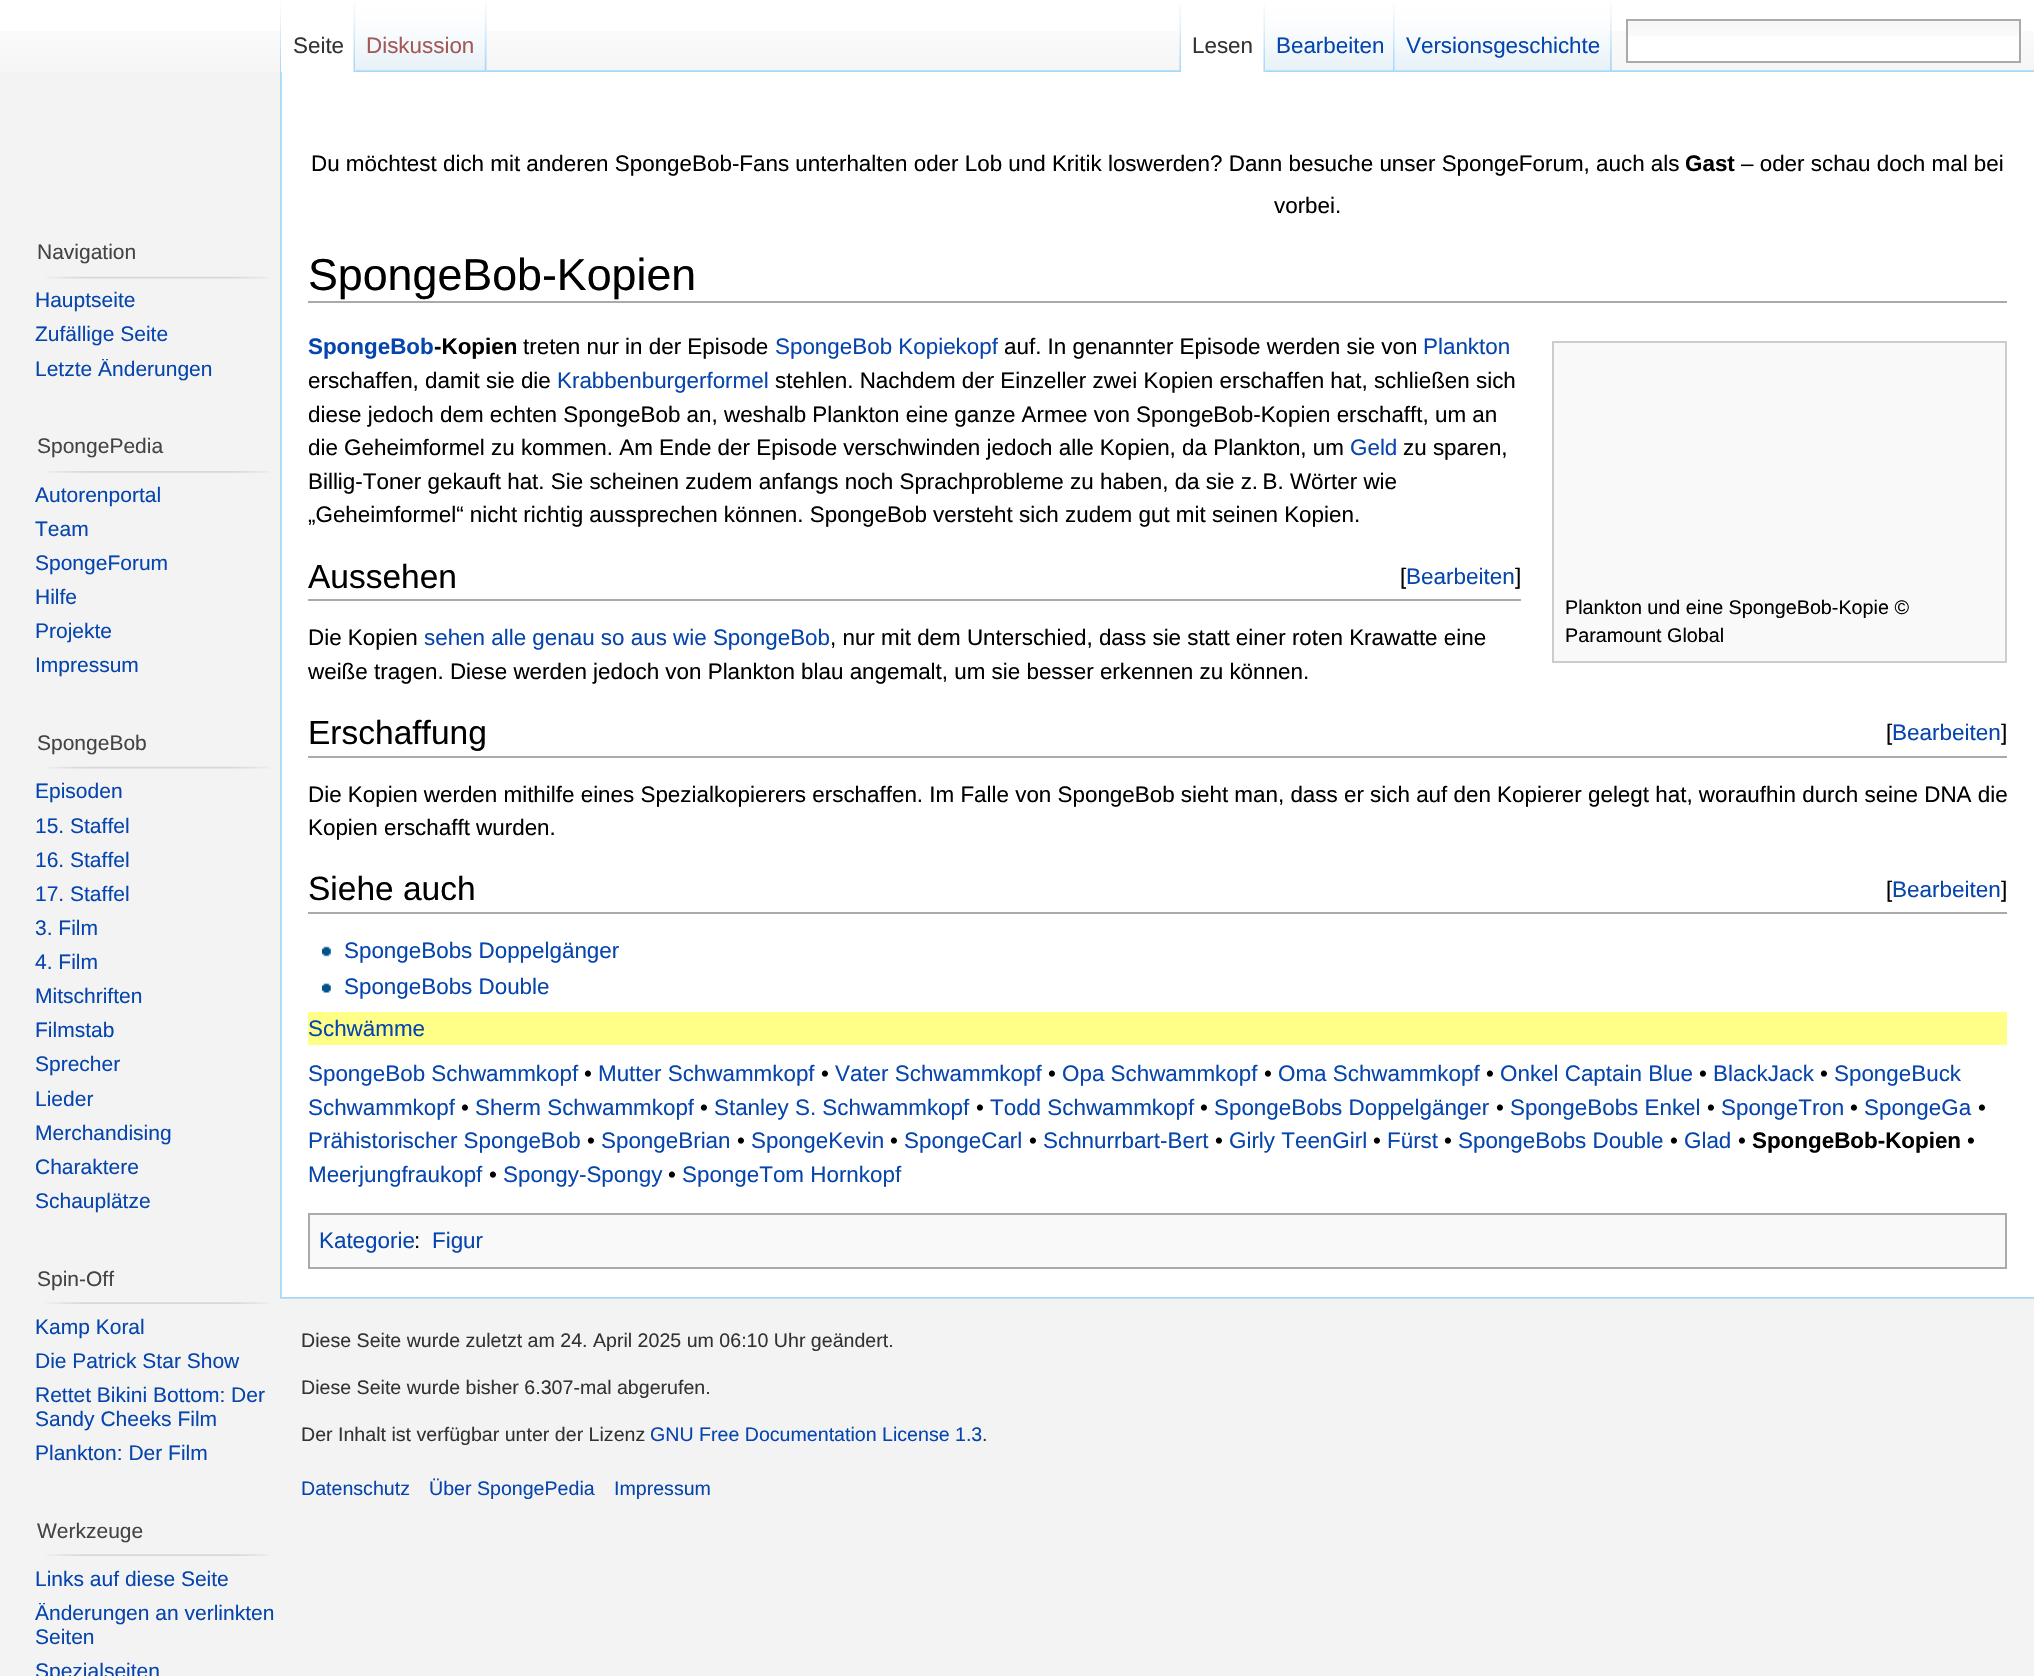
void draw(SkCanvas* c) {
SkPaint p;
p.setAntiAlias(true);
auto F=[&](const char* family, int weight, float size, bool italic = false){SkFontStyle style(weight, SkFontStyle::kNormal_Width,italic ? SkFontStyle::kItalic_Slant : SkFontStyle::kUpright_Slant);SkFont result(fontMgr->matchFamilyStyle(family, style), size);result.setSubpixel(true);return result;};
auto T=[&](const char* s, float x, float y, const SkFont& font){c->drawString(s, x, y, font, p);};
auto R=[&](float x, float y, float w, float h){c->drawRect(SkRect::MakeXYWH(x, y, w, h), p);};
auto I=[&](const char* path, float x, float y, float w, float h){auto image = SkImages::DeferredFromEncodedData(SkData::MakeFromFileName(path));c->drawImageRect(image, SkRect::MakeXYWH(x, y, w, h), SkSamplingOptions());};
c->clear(0xfff3f3f3);
p.setColor(0xffffffff);
R(0,0,2034,31);
I("1.png",0,31,2034,41);
I("13.png",280,70,1754,2);
I("2.png",280,2,1,69);
R(281,31,74,41);
I("3.png",353,3,2,69);
auto f1 = F("Liberation Sans",400,22.4);
p.setColor(0xff333333);
T("Seite",293,53,f1);
p.setColor(0xfff3f3f3);
R(355,2,132,70);
I("4.png",355,2,132,70);
I("5.png",484,3,3,69);
p.setColor(0xffa55858);
T("Diskussion",366,53,f1);
I("6.png",1179,2,2,69);
I("7.png",1611,2,1,69);
p.setColor(0xffffffff);
R(1181,31,85,41);
I("8.png",1263,3,3,69);
p.setColor(0xff333333);
T("Lesen",1192,53,f1);
I("9.png",1265,2,130,70);
I("10.png",1393,3,2,69);
p.setColor(0xff0645ad);
T("Bearbeiten",1276,53,f1);
I("11.png",1394,2,218,70);
I("10.png",1610,3,2,69);
T("Versionsgeschichte",1406,53,f1);
p.setColor(0xffffffff);
R(1628,31,391,30);
I("12.png",1628,21,391,15);
p.setStroke(true);
p.setStrokeWidth(2);
p.setColor(0xffaaaaaa);
c->drawRect(SkRect::MakeXYWH(1627,20,393,42),p);
auto f2 = F("Liberation Sans",400,21);
p.setStroke(false);
p.setColor(0xff444444);
T("Navigation",37,259,f2);
I("14.png",46,276,224,3);
p.setColor(0xff0645ad);
T("Hauptseite",35,307,f2);
T("Zufällige Seite",35,341,f2);
c->save();
c->clipRect(SkRect::MakeXYWH(35,359,245,33));
T("Letzte Änderungen",35,376,f2);
c->restore();
p.setColor(0xff444444);
T("SpongePedia",37,453,f2);
I("15.png",46,471,224,2);
p.setColor(0xff0645ad);
T("Autorenportal",35,502,f2);
T("Team",35,536,f2);
T("SpongeForum",35,570,f2);
T("Hilfe",35,604,f2);
T("Projekte",35,638,f2);
T("Impressum",35,672,f2);
p.setColor(0xff444444);
T("SpongeBob",37,750,f2);
I("14.png",46,766,224,3);
p.setColor(0xff0645ad);
T("Episoden",35,798,f2);
T("15. Staffel",35,833,f2);
T("16. Staffel",35,867,f2);
T("17. Staffel",35,901,f2);
T("3. Film",35,935,f2);
T("4. Film",35,969,f2);
T("Mitschriften",35,1003,f2);
T("Filmstab",35,1037,f2);
T("Sprecher",35,1071,f2);
T("Lieder",35,1106,f2);
T("Merchandising",35,1140,f2);
T("Charaktere",35,1174,f2);
T("Schauplätze",35,1208,f2);
p.setColor(0xff444444);
T("Spin-Off",37,1286,f2);
I("16.png",46,1302,224,2);
p.setColor(0xff0645ad);
T("Kamp Koral",35,1334,f2);
T("Die Patrick Star Show",35,1368,f2);
T("Rettet Bikini Bottom: Der",35,1402,f2);
T("Sandy Cheeks Film",35,1426,f2);
T("Plankton: Der Film",35,1460,f2);
p.setColor(0xff444444);
T("Werkzeuge",37,1538,f2);
I("16.png",46,1554,224,2);
p.setColor(0xff0645ad);
T("Links auf diese Seite",35,1586,f2);
c->save();
c->clipRect(SkRect::MakeXYWH(35,1603,245,58));
T("Änderungen an verlinkten",35,1620,f2);
c->restore();
T("Seiten",35,1644,f2);
T("Spezialseiten",35,1678,f2);
p.setColor(0xffffffff);
R(281,72,1753,1225);
I("17.png",280,72,2,1225);
p.setColor(0xff000000);
T("Du möchtest dich mit anderen SpongeBob-Fans unterhalten oder Lob und Kritik loswerden? Dann besuche unser SpongeForum, auch als",311,171,f1);
auto f3 = F("Liberation Sans",700,22.4);
T("Gast",1685,171,f3);
T("– oder schau doch mal bei",1741,171,f1);
T("vorbei.",1274,213,f1);
p.setColor(0xffaaaaaa);
R(308,301,1699,2);
auto f4 = F("Liberation Sans",400,44.75);
p.setColor(0xff000000);
T("SpongeBob-Kopien",308,290,f4);
p.setColor(0xff0645ad);
T("SpongeBob",308,354,f3);
p.setColor(0xff000000);
T("-Kopien",434,354,f3);
T("treten nur in der Episode",523,354,f1);
p.setColor(0xff0645ad);
T("SpongeBob Kopiekopf",775,354,f1);
p.setColor(0xff000000);
T("auf. In genannter Episode werden sie von",1004,354,f1);
p.setColor(0xff0645ad);
T("Plankton",1423,354,f1);
p.setColor(0xff000000);
T("erschaffen, damit sie die",308,388,f1);
p.setColor(0xff0645ad);
T("Krabbenburgerformel",557,388,f1);
p.setColor(0xff000000);
T("stehlen. Nachdem der Einzeller zwei Kopien erschaffen hat, schließen sich",775,388,f1);
T("diese jedoch dem echten SpongeBob an, weshalb Plankton eine ganze Armee von SpongeBob-Kopien erschafft, um an",308,422,f1);
T("die Geheimformel zu kommen. Am Ende der Episode verschwinden jedoch alle Kopien, da Plankton, um",308,455,f1);
p.setColor(0xff0645ad);
T("Geld",1350,455,f1);
p.setColor(0xff000000);
T("zu sparen,",1403,455,f1);
T("Billig-Toner gekauft hat. Sie scheinen zudem anfangs noch Sprachprobleme zu haben, da sie z. B. Wörter wie",308,489,f1);
T("„Geheimformel“ nicht richtig aussprechen können. SpongeBob versteht sich zudem gut mit seinen Kopien.",308,522,f1);
p.setColor(0xffaaaaaa);
R(308,599,1213,2);
auto f5 = F("Liberation Sans",400,33.5);
p.setColor(0xff000000);
T("Aussehen",308,588,f5);
auto f6 = F("Liberation Sans",400,22.5);
T("[",1400,584,f6);
p.setColor(0xff0645ad);
T("Bearbeiten",1406,584,f6);
p.setColor(0xff000000);
T("]",1515,584,f6);
p.setColor(0xfff9f9f9);
c->drawRect(SkRect::MakeXYWH(1553,342,453,320),p);
p.setStroke(true);
p.setColor(0xffcccccc);
c->drawRect(SkRect::MakeXYWH(1553,342,453,320),p);
auto f7 = F("Liberation Sans",400,19.75);
p.setStroke(false);
p.setColor(0xff000000);
T("Plankton und eine SpongeBob-Kopie ©",1565,614,f7);
T("Paramount Global",1565,642,f7);
T("Die Kopien",308,645,f1);
p.setColor(0xff0645ad);
T("sehen alle genau so aus wie SpongeBob",424,645,f1);
p.setColor(0xff000000);
T(", nur mit dem Unterschied, dass sie statt einer roten Krawatte eine",830,645,f1);
T("weiße tragen. Diese werden jedoch von Plankton blau angemalt, um sie besser erkennen zu können.",308,679,f1);
p.setColor(0xffaaaaaa);
R(308,756,1699,2);
p.setColor(0xff000000);
T("Erschaffung",308,744,f5);
T("[",1886,740,f6);
p.setColor(0xff0645ad);
T("Bearbeiten",1892,740,f6);
p.setColor(0xff000000);
T("]",2001,740,f6);
T("Die Kopien werden mithilfe eines Spezialkopierers erschaffen. Im Falle von SpongeBob sieht man, dass er sich auf den Kopierer gelegt hat, woraufhin durch seine DNA die",308,802,f1);
T("Kopien erschafft wurden.",308,835,f1);
p.setColor(0xffaaaaaa);
R(308,912,1699,2);
p.setColor(0xff000000);
T("Siehe auch",308,900,f5);
T("[",1886,897,f6);
p.setColor(0xff0645ad);
T("Bearbeiten",1892,897,f6);
p.setColor(0xff000000);
T("]",2001,897,f6);
I("18.png",322,946,9,11);
p.setColor(0xff0645ad);
T("SpongeBobs Doppelgänger",344,958,f1);
I("19.png",322,983,9,10);
T("SpongeBobs Double",344,994,f1);
p.setColor(0xffffff88);
R(308,1012,1699,33);
p.setColor(0xff0645ad);
T("Schwämme",308,1036,f1);
T("SpongeBob Schwammkopf",308,1081,f1);
p.setColor(0xff000000);
T("•",584,1081,f1);
p.setColor(0xff0645ad);
T("Mutter Schwammkopf",598,1081,f1);
p.setColor(0xff000000);
T("•",821,1081,f1);
p.setColor(0xff0645ad);
T("Vater Schwammkopf",835,1081,f1);
p.setColor(0xff000000);
T("•",1048,1081,f1);
p.setColor(0xff0645ad);
T("Opa Schwammkopf",1062,1081,f1);
p.setColor(0xff000000);
T("•",1264,1081,f1);
p.setColor(0xff0645ad);
T("Oma Schwammkopf",1278,1081,f1);
p.setColor(0xff000000);
T("•",1486,1081,f1);
p.setColor(0xff0645ad);
T("Onkel Captain Blue",1500,1081,f1);
p.setColor(0xff000000);
T("•",1699,1081,f1);
p.setColor(0xff0645ad);
T("BlackJack",1713,1081,f1);
p.setColor(0xff000000);
T("•",1820,1081,f1);
p.setColor(0xff0645ad);
T("SpongeBuck",1834,1081,f1);
T("Schwammkopf",308,1115,f1);
p.setColor(0xff000000);
T("•",461,1115,f1);
p.setColor(0xff0645ad);
T("Sherm Schwammkopf",475,1115,f1);
p.setColor(0xff000000);
T("•",700,1115,f1);
p.setColor(0xff0645ad);
T("Stanley S. Schwammkopf",714,1115,f1);
p.setColor(0xff000000);
T("•",976,1115,f1);
p.setColor(0xff0645ad);
T("Todd Schwammkopf",990,1115,f1);
p.setColor(0xff000000);
T("•",1200,1115,f1);
p.setColor(0xff0645ad);
T("SpongeBobs Doppelgänger",1214,1115,f1);
p.setColor(0xff000000);
T("•",1496,1115,f1);
p.setColor(0xff0645ad);
T("SpongeBobs Enkel",1510,1115,f1);
p.setColor(0xff000000);
T("•",1707,1115,f1);
p.setColor(0xff0645ad);
T("SpongeTron",1721,1115,f1);
p.setColor(0xff000000);
T("•",1850,1115,f1);
p.setColor(0xff0645ad);
T("SpongeGa",1864,1115,f1);
p.setColor(0xff000000);
T("•",1978,1115,f1);
p.setColor(0xff0645ad);
T("Prähistorischer SpongeBob",308,1148,f1);
p.setColor(0xff000000);
T("•",587,1148,f1);
p.setColor(0xff0645ad);
T("SpongeBrian",601,1148,f1);
p.setColor(0xff000000);
T("•",737,1148,f1);
p.setColor(0xff0645ad);
T("SpongeKevin",751,1148,f1);
p.setColor(0xff000000);
T("•",890,1148,f1);
p.setColor(0xff0645ad);
T("SpongeCarl",904,1148,f1);
p.setColor(0xff000000);
T("•",1029,1148,f1);
p.setColor(0xff0645ad);
T("Schnurrbart-Bert",1043,1148,f1);
p.setColor(0xff000000);
T("•",1215,1148,f1);
p.setColor(0xff0645ad);
T("Girly TeenGirl",1229,1148,f1);
p.setColor(0xff000000);
T("•",1373,1148,f1);
p.setColor(0xff0645ad);
T("Fürst",1387,1148,f1);
p.setColor(0xff000000);
T("•",1444,1148,f1);
p.setColor(0xff0645ad);
T("SpongeBobs Double",1458,1148,f1);
p.setColor(0xff000000);
T("•",1670,1148,f1);
p.setColor(0xff0645ad);
T("Glad",1684,1148,f1);
p.setColor(0xff000000);
T("•",1738,1148,f1);
T("SpongeBob-Kopien",1752,1148,f3);
T("•",1967,1148,f1);
p.setColor(0xff0645ad);
T("Meerjungfraukopf",308,1182,f1);
p.setColor(0xff000000);
T("•",489,1182,f1);
p.setColor(0xff0645ad);
T("Spongy-Spongy",503,1182,f1);
p.setColor(0xff000000);
T("•",668,1182,f1);
p.setColor(0xff0645ad);
T("SpongeTom Hornkopf",682,1182,f1);
p.setColor(0xfff9f9f9);
c->drawRect(SkRect::MakeXYWH(309,1214,1697,54),p);
p.setStroke(true);
p.setColor(0xffaaaaaa);
c->drawRect(SkRect::MakeXYWH(309,1214,1697,54),p);
p.setStroke(false);
p.setColor(0xff0645ad);
T("Kategorie",319,1248,f1);
p.setColor(0xff000000);
T(":",414,1248,f1);
p.setColor(0xff0645ad);
T("Figur",432,1248,f1);
I("20.png",280,1297,1754,2);
auto f8 = F("Liberation Sans",400,19.6);
p.setColor(0xff333333);
T("Diese Seite wurde zuletzt am 24. April 2025 um 06:10 Uhr geändert.",301,1347,f8);
T("Diese Seite wurde bisher 6.307-mal abgerufen.",301,1394,f8);
T("Der Inhalt ist verfügbar unter der Lizenz",301,1441,f8);
p.setColor(0xff0645ad);
T("GNU Free Documentation License 1.3",650,1441,f8);
p.setColor(0xff333333);
T(".",982,1441,f8);
p.setColor(0xff0645ad);
T("Datenschutz",301,1495,f8);
T("Über SpongePedia",429,1495,f8);
T("Impressum",614,1495,f8);
}
